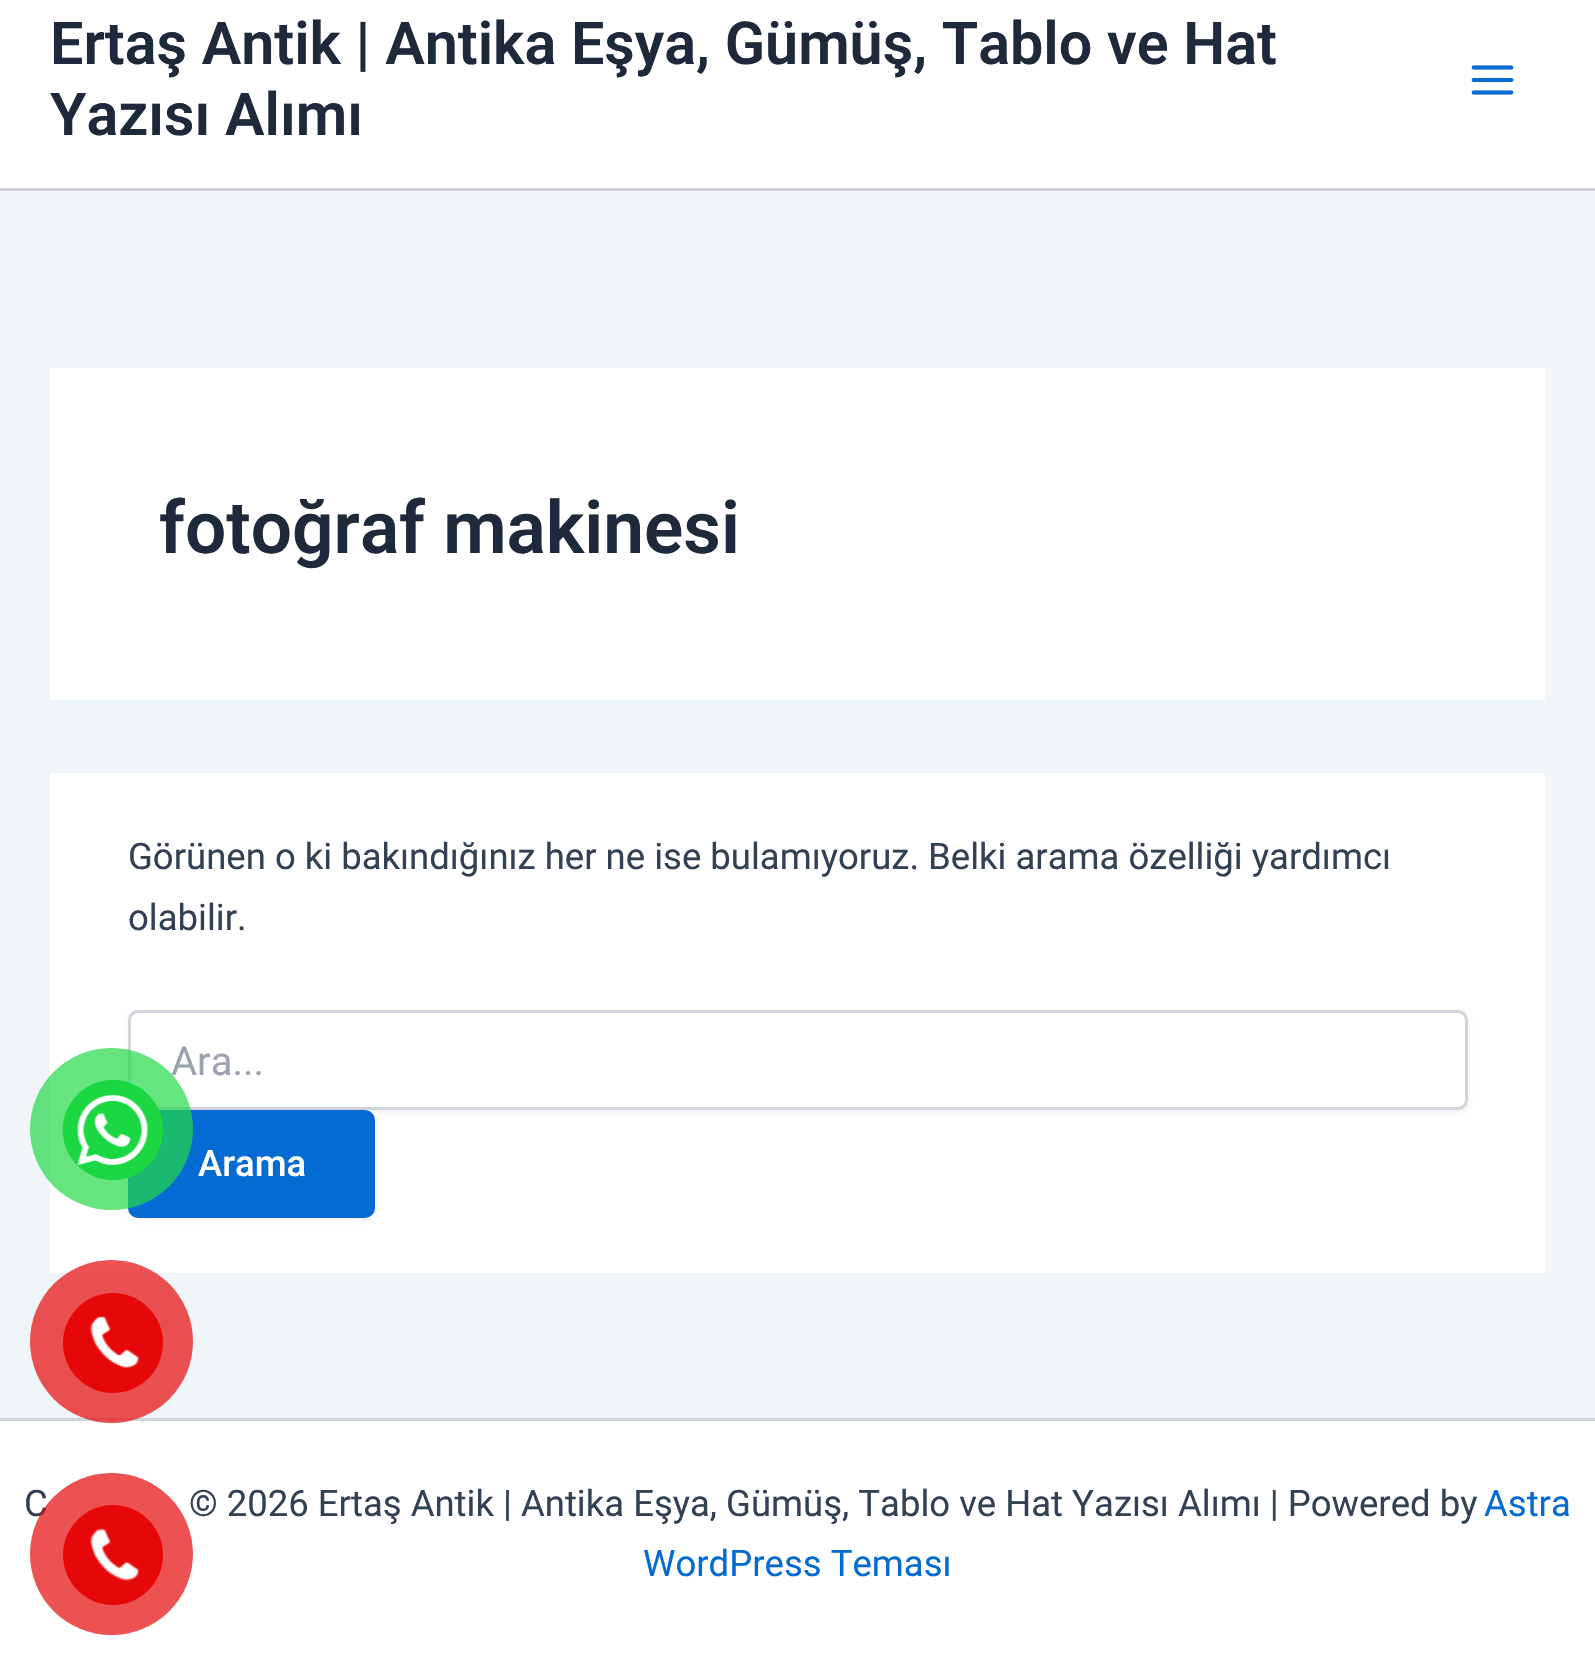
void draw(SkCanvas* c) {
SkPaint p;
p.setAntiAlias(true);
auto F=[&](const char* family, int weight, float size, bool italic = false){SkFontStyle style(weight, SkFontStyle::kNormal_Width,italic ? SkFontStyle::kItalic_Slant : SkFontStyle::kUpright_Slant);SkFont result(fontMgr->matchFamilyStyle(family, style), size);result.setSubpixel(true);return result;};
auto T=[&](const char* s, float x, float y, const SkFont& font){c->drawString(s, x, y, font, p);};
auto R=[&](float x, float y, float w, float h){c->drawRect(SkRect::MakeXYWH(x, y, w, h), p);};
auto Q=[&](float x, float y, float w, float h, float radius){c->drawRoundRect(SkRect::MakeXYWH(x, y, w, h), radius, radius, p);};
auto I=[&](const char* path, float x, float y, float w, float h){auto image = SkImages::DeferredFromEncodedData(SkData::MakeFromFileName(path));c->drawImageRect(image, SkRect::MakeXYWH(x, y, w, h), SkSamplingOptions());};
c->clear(0xfff0f5fa);
p.setColor(0xffffffff);
R(0,0,1595,188);
p.setColor(0xffd1d5db);
R(0,188,1595,3);
auto f1 = F("Roboto",600,59.25);
p.setColor(0xff1e293b);
T("Ertaş Antik | Antika Eşya, Gümüş, Tablo ve Hat",50,64,f1);
T("Yazısı Alımı",50,135,f1);
I("1.png",1471,65,43,30);
p.setColor(0xffffffff);
R(50,368,1495,332);
auto f2 = F("Roboto",600,73);
p.setColor(0xff1e293b);
T("fotoğraf makinesi",159,553,f2);
p.setColor(0xffffffff);
R(50,773,1495,500);
auto f3 = F("Roboto",400,36.5);
p.setColor(0xff334155);
T("Görünen o ki bakındığınız her ne ise bulamıyoruz. Belki arama özelliği yardımcı",128,869,f3);
T("olabilir.",128,930,f3);
p.setColor(0x0d000000);
p.setMaskFilter(SkMaskFilter::MakeBlur(kNormal_SkBlurStyle, 2.5));
c->drawRoundRect(SkRect::MakeXYWH(128,1013,1340,100),10,10,p);
p.setMaskFilter(nullptr);
p.setColor(0xffffffff);
c->drawRoundRect(SkRect::MakeXYWH(129.5,1011.5,1337,97),8.5,8.5,p);
p.setStroke(true);
p.setStrokeWidth(3);
p.setColor(0xffd1d5db);
c->drawRoundRect(SkRect::MakeXYWH(129.5,1011.5,1337,97),8.5,8.5,p);
auto f4 = F("Roboto",400,40);
p.setStroke(false);
p.setColor(0xff9ca3af);
T("Ara...",171,1075,f4);
p.setColor(0x0d000000);
p.setMaskFilter(SkMaskFilter::MakeBlur(kNormal_SkBlurStyle, 2.5));
c->drawRoundRect(SkRect::MakeXYWH(128,1113,247,107),10,10,p);
p.setMaskFilter(nullptr);
p.setColor(0xff046bd2);
Q(128,1110,247,108,10);
auto f5 = F("Roboto",500,36.5);
p.setColor(0xffffffff);
T("Arama",198,1176,f5);
R(0,1421,1595,246);
p.setColor(0xffd1d5db);
R(0,1418,1595,3);
p.setColor(0xff334155);
T("C",24,1516,f3);
T("© 2026 Ertaş Antik | Antika Eşya, Gümüş, Tablo ve Hat Yazısı Alımı | Powered by",189,1516,f3);
p.setColor(0xff046bd2);
T("Astra",1484,1516,f3);
T("WordPress Teması",643,1576,f3);
p.setColor(0xb323d948);
Q(30,1048,163,162,81);
p.setColor(0xff1cd741);
c->drawCircle(113,1130,50,p);
I("2.png",62,1080,86,100);
p.setColor(0xb3e60808);
c->drawCircle(111.5,1341.5,81.5,p);
p.setColor(0xffe60808);
c->drawCircle(113,1343,50,p);
I("3.png",90,1316,49,52);
p.setColor(0xb3e60808);
Q(30,1473,163,162,81);
p.setColor(0xffe60808);
c->drawCircle(113,1555,50,p);
I("4.png",90,1528,49,53);
}
